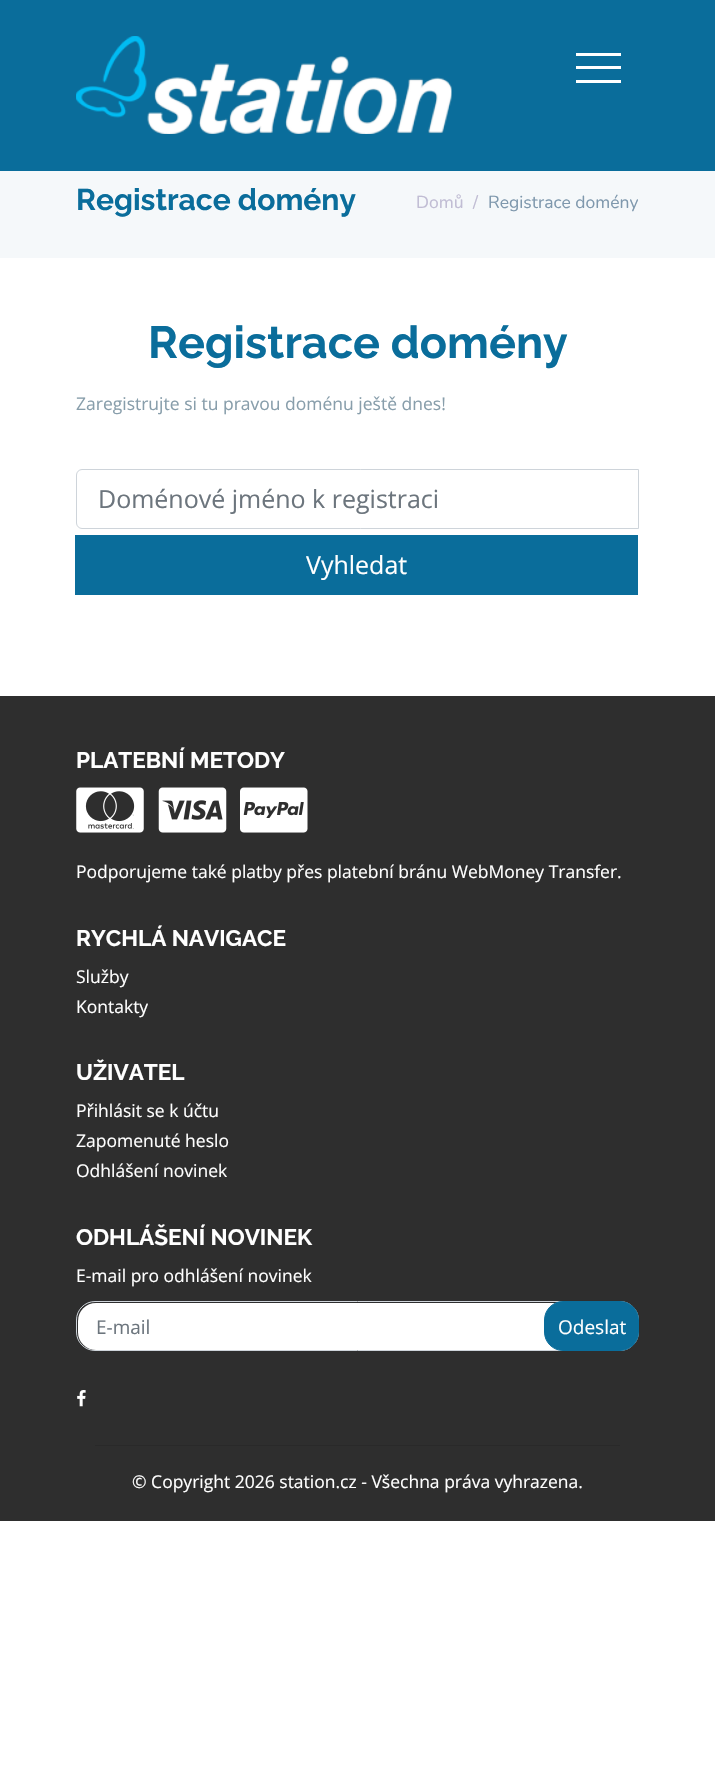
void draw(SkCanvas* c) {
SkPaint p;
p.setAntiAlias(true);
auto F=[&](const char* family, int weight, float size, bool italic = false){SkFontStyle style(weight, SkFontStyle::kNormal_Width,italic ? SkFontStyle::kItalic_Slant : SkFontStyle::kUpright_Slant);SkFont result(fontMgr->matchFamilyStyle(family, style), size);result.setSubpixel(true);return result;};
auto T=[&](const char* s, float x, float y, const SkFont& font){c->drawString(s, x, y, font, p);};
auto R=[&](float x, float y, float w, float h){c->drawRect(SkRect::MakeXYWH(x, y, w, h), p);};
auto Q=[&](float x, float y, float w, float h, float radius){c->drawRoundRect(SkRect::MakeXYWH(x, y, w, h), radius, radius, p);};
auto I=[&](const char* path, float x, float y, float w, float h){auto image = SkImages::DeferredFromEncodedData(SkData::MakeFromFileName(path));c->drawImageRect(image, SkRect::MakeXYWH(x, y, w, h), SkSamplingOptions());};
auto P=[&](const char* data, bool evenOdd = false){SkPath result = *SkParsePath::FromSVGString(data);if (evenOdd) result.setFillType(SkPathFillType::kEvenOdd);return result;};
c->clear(0xffffffff);
p.setColor(0xff0a6d9b);
R(0,0,715,171);
I("1.png",76,36,376,98);
I("2.png",76,36,376,98);
p.setColor(0xffffffff);
R(576,53,45,3);
R(576,80,45,3);
R(576,66,45,3);
p.setColor(0xfff5f8fa);
R(0,171,715,87);
auto f1 = F("Raleway",700,30);
p.setColor(0xff0a6d9b);
T("Registrace domény",76,210,f1);
auto f2 = F("Nunito",400,17.5);
p.setColor(0xffc1bdd4);
T("Domů",416,208,f2);
T("/",473,208,f2);
p.setColor(0xff7f98ad);
T("Registrace domény",488,208,f2);
auto f3 = F("Raleway",700,45);
p.setColor(0xff0a6d9b);
T("Registrace domény",148,358,f3);
auto f4 = F("Open Sans",400,17.5);
p.setColor(0xff889eab);
T("Zaregistrujte si tu pravou doménu ještě dnes!",76,410,f4);
p.setStroke(true);
p.setStrokeWidth(1);
p.setColor(0xffced4da);
c->drawPath(P("M82 469.5h556.5v59h-556.5c-3 0-5.5-2.5-5.5-5.5v-48c0-3 2.5-5.5 5.5-5.5z"),p);
auto f5 = F("Open Sans",400,25);
p.setStroke(false);
p.setColor(0xff6c757d);
T("Doménové jméno k registraci",98,508,f5);
p.setColor(0xff0a6d9b);
R(75,535,563,60);
p.setColor(0xffffffff);
T("Vyhledat",306,574,f5);
p.setColor(0xff2e2e2e);
R(0,696,715,825);
auto f6 = F("Raleway",700,22.5);
p.setColor(0xffffffff);
T("PLATEBNÍ METODY",76,768,f6);
I("3.png",76,787,68,46);
I("4.png",158,787,69,46);
I("5.png",240,787,68,46);
T("Podporujeme také platby přes platební bránu WebMoney Transfer.",76,878,f4);
T("RYCHLÁ NAVIGACE",76,946,f6);
T("Služby",76,983,f4);
T("Kontakty",76,1013,f4);
T("UŽIVATEL",76,1080,f6);
T("Přihlásit se k účtu",76,1117,f4);
T("Zapomenuté heslo",76,1147,f4);
T("Odhlášení novinek",76,1177,f4);
T("ODHLÁŠENÍ NOVINEK",76,1245,f6);
T("E-mail pro odhlášení novinek",76,1282,f4);
Q(78,1303,560,47,18);
p.setStroke(true);
p.setColor(0xffced4da);
c->drawRoundRect(SkRect::MakeXYWH(76.5,1301.5,562,49),18.5,18.5,p);
auto f7 = F("Open Sans",400,19);
p.setStroke(false);
p.setColor(0xff6c757d);
T("E-mail",96,1334,f7);
p.setColor(0xff0a6d9b);
c->drawRoundRect(SkRect::MakeXYWH(544.5,1301.5,94,49),18.5,18.5,p);
p.setStroke(true);
c->drawRoundRect(SkRect::MakeXYWH(544.5,1301.5,94,49),18.5,18.5,p);
p.setStroke(false);
p.setColor(0xffffffff);
T("Odeslat",558,1334,f7);
I("6.png",77,1390,9,17);
p.setColor(0xff292929);
R(95,1445,525,1);
p.setColor(0xffffffff);
T("© Copyright 2026 station.cz - Všechna práva vyhrazena.",132,1488,f4);
}
